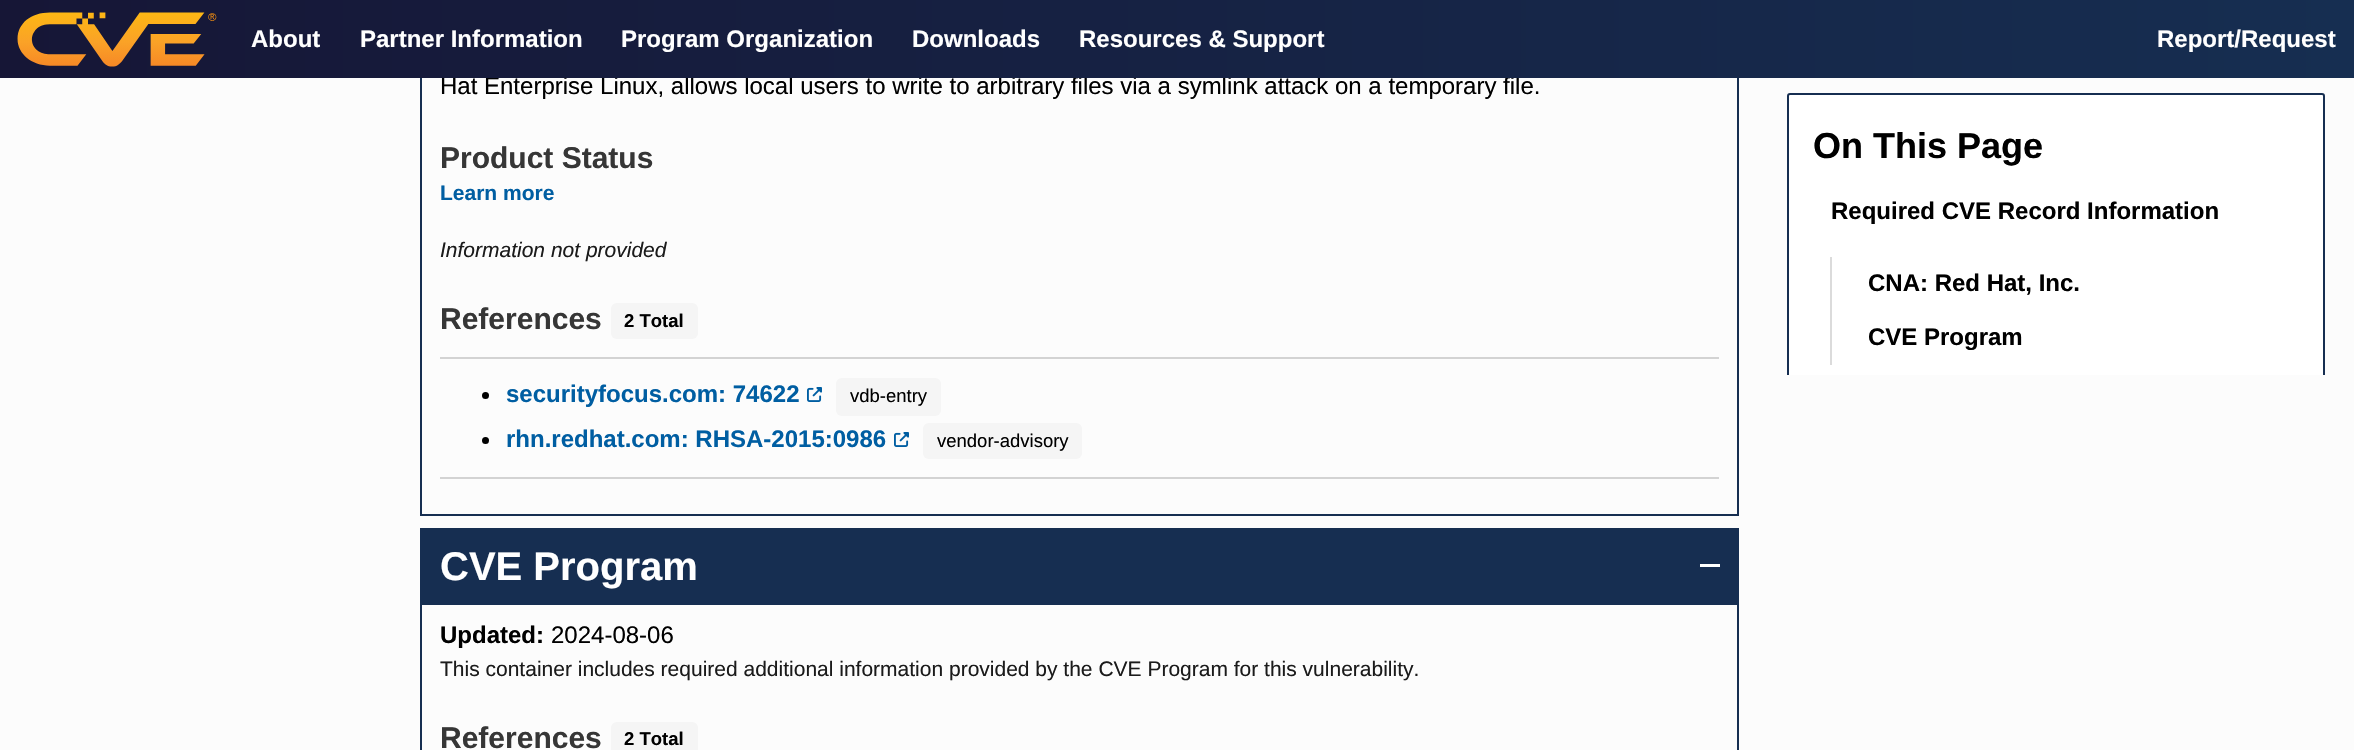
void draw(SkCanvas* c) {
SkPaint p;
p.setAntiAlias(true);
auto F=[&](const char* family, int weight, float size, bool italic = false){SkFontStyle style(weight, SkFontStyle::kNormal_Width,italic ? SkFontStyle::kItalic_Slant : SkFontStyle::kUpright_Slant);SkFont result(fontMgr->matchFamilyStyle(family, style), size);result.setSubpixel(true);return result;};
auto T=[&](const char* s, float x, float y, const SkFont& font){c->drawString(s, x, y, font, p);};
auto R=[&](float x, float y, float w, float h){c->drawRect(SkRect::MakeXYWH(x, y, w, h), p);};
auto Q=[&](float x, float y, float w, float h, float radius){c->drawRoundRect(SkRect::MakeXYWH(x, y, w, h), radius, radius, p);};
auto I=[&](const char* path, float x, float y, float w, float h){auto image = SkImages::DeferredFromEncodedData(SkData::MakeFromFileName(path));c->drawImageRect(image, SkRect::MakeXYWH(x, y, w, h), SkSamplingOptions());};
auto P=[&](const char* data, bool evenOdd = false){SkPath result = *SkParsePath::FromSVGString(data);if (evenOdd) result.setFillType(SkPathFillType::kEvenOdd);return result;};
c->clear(0xfffcfcfc);
p.setStroke(true);
p.setStrokeWidth(2);
p.setColor(0xff162e51);
c->drawRect(SkRect::MakeXYWH(421,-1,1317,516),p);
auto f1 = F("Liberation Sans",400,24);
p.setStroke(false);
p.setColor(0xff000000);
T("Hat Enterprise Linux, allows local users to write to arbitrary files via a symlink attack on a temporary file.",440,94,f1);
{
const SkColor colors[] = {0xff161636,0xff162e51};
const float stops[] = {0,1};
const SkPoint ends[] = {{0,39}, {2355,39}};
p.setShader(SkGradientShader::MakeLinear(ends, colors, stops, 2, SkTileMode::kClamp));
p.setAlpha(255);
}
R(0,0,2354,78);
I("1.png",17,12,200,55);
auto f2 = F("Liberation Sans",700,24);
p.setShader(nullptr);
p.setColor(0xffffffff);
T("About",251,47,f2);
T("Partner Information",360,47,f2);
T("Program Organization",621,47,f2);
T("Downloads",912,47,f2);
T("Resources & Support",1079,47,f2);
T("Report/Request",2157,47,f2);
auto f3 = F("Liberation Sans",700,30);
p.setColor(0xff363636);
T("Product Status",440,168,f3);
auto f4 = F("Liberation Sans",700,21);
p.setColor(0xff005ea2);
T("Learn more",440,200,f4);
auto f5 = F("Liberation Sans",400,21,true);
p.setColor(0xff1b1b1b);
T("Information not provided",440,257,f5);
p.setColor(0xff363636);
T("References",440,329,f3);
p.setColor(0xfff5f5f5);
Q(611,303,87,36,6);
auto f6 = F("Liberation Sans",700,18.5);
p.setColor(0xff000000);
T("2 Total",624,327,f6);
p.setColor(0xffd3d3d3);
R(440,357,1279,2);
R(440,477,1279,2);
p.setColor(0xff000000);
c->drawCircle(485.5,395.5,3.5,p);
p.setColor(0xff005ea2);
T("securityfocus.com: 74622",506,402,f2);
I("2.png",807,387,15,15);
p.setColor(0xfff5f5f5);
Q(836,378,105,38,6);
auto f7 = F("Liberation Sans",400,18.5);
p.setColor(0xff000000);
T("vdb-entry",850,402,f7);
c->drawCircle(485.5,440.5,3.5,p);
p.setColor(0xff005ea2);
T("rhn.redhat.com: RHSA-2015:0986",506,447,f2);
I("2.png",894,432,15,15);
p.setColor(0xfff5f5f5);
Q(923,423,159,36,6);
p.setColor(0xff000000);
T("vendor-advisory",937,447,f7);
p.setColor(0xff162e51);
R(420,528,1319,75);
auto f8 = F("Liberation Sans",700,40);
p.setColor(0xffffffff);
T("CVE Program",440,580,f8);
R(1700,564,20,3);
p.setStroke(true);
p.setColor(0xff162e51);
c->drawRect(SkRect::MakeXYWH(421,604,1317,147),p);
p.setStroke(false);
p.setColor(0xff000000);
T("Updated:",440,643,f2);
T("2024-08-06",551,643,f1);
auto f9 = F("Liberation Sans",400,21);
p.setColor(0xff1b1b1b);
T("This container includes required additional information provided by the CVE Program for this vulnerability.",440,676,f9);
p.setColor(0xff363636);
T("References",440,748,f3);
p.setColor(0xfff5f5f5);
Q(611,722,87,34,6);
p.setColor(0xff000000);
T("2 Total",624,745,f6);
p.setColor(0xffffffff);
c->drawPath(P("M1790 93h532c1.5 0 3 1.5 3 3v279h-538v-279c0-1.5 1.5-3 3-3z"),p);
c->save();
c->clipRect(SkRect::MakeXYWH(1763,0,586,375));
p.setStroke(true);
p.setColor(0xff162e51);
c->drawRoundRect(SkRect::MakeXYWH(1788,94,536,313),2,2,p);
c->restore();
auto f10 = F("Liberation Sans",700,36);
p.setStroke(false);
p.setColor(0xff000000);
T("On This Page",1813,158,f10);
T("Required CVE Record Information",1831,219,f2);
p.setColor(0xffdbdbdb);
R(1830,257,2,108);
p.setColor(0xff000000);
T("CNA: Red Hat, Inc.",1868,291,f2);
T("CVE Program",1868,345,f2);
}
